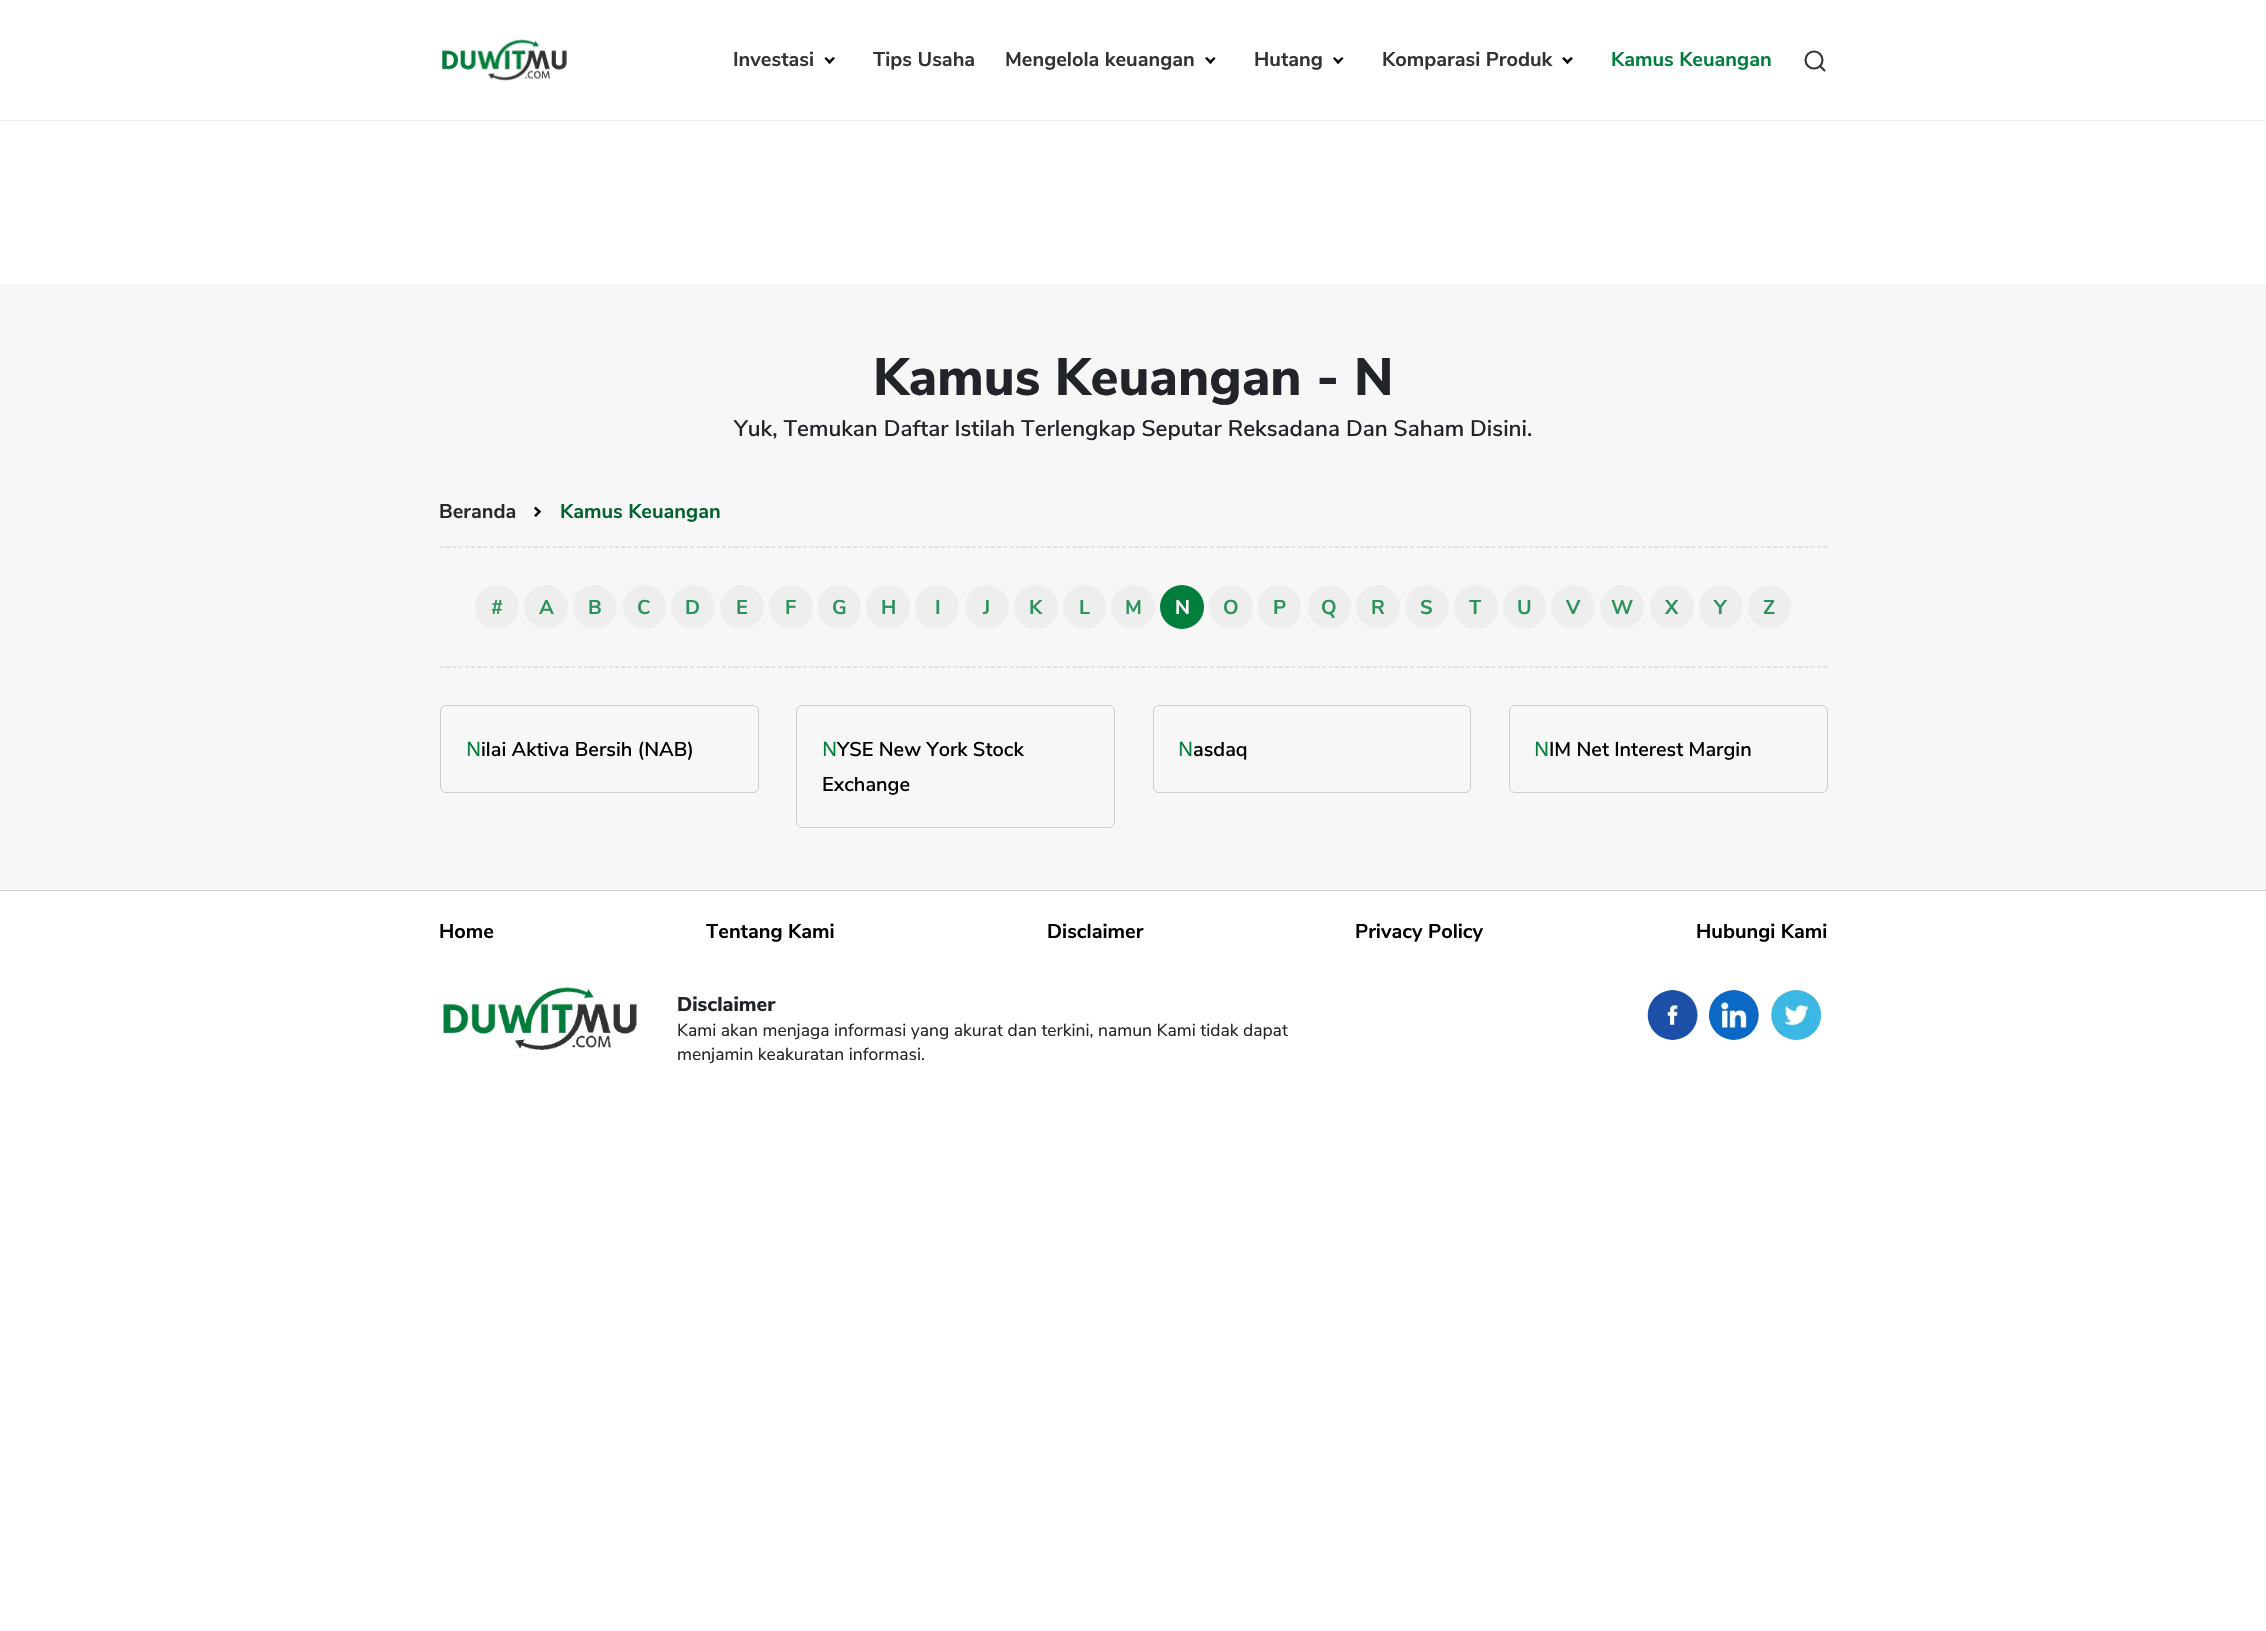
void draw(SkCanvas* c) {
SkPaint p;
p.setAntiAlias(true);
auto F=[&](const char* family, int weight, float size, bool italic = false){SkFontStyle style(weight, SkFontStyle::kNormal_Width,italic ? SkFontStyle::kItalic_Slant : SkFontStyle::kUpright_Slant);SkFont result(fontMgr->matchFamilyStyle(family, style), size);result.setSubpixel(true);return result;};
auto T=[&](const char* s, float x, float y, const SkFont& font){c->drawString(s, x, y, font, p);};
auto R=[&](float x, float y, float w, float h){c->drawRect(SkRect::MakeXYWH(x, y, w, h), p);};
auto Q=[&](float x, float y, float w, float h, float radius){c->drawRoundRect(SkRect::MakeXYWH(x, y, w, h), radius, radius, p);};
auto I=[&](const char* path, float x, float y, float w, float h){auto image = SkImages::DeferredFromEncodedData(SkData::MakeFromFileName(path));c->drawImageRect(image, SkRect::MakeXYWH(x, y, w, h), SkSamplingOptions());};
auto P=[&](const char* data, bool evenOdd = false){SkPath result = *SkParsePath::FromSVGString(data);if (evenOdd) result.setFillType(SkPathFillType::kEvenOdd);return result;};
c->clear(0xffffffff);
p.setColor(0xffeeeeee);
R(0,120,2266,1);
I("1.png",442,39,125,42);
auto f1 = F("Nunito Sans",700,20);
p.setColor(0xff333333);
T("Investasi",733,66,f1);
p.setColor(0xff000000);
c->drawPath(P("M833 57l2 1.5l-5.5 5.5l-1.5-2z"),p);
c->drawPath(P("M826 57l5.5 5l-2 2l-5-5.5z"),p);
p.setColor(0xff333333);
T("Tips Usaha",873,66,f1);
T("Mengelola keuangan",1005,66,f1);
p.setColor(0xff000000);
c->drawPath(P("M1214 57l1.5 1.5l-5 5.5l-2-2z"),p);
c->drawPath(P("M1207 57l5 5l-1.5 2l-5.5-5.5z"),p);
p.setColor(0xff333333);
T("Hutang",1254,66,f1);
p.setColor(0xff000000);
c->drawPath(P("M1342 57l1.5 1.5l-5.5 5.5l-1.5-2z"),p);
c->drawPath(P("M1334.5 57l5.5 5l-2 2l-5-5.5z"),p);
p.setColor(0xff333333);
T("Komparasi Produk",1382,66,f1);
p.setColor(0xff000000);
c->drawPath(P("M1571 57l2 1.5l-5.5 5.5l-2-2z"),p);
c->drawPath(P("M1564 57l5 5l-1.5 2l-5.5-5.5z"),p);
p.setColor(0xff007e3b);
T("Kamus Keuangan",1611,66,f1);
p.setStroke(true);
p.setStrokeWidth(2.1);
p.setColor(0xff333333);
c->drawCircle(1814,60,8.5,p);
p.setStrokeCap(SkPaint::kRound_Cap);
p.setStrokeJoin(SkPaint::kRound_Join);
c->drawPath(P("M1824.5 70.5l-4.5-4.5"),p);
p.setStroke(false);
p.setColor(0xfff7f7f7);
R(0,284,2266,606);
auto f2 = F("Nunito Sans",800,52.5);
p.setColor(0xff212529);
T("Kamus Keuangan - N",873,395,f2);
auto f3 = F("Nunito Sans",600,22.5);
T("Yuk, Temukan Daftar Istilah Terlengkap Seputar Reksadana Dan Saham Disini.",734,436,f3);
p.setColor(0xff292929);
T("Beranda",439,518,f1);
p.setColor(0xff000000);
c->drawPath(P("M541 511.5l-5 5.5l-2-1.5l5.5-5.5z"),p);
c->drawPath(P("M541 511.5l-1.5 2l-5.5-5l1.5-2z"),p);
p.setColor(0xff02622f);
T("Kamus Keuangan",560,518,f1);
p.setStroke(true);
p.setStrokeWidth(1.2);
p.setStrokeCap(SkPaint::kButt_Cap);
p.setStrokeJoin(SkPaint::kMiter_Join);
p.setColor(0xffcccccc);
p.setPathEffect(SkDashPathEffect::Make({{3.75f,2.51f}}, 0));
c->drawPath(P("M440 547h1387.5"),p);
p.setPathEffect(nullptr);
p.setPathEffect(SkDashPathEffect::Make({{3.75f,2.51f}}, 0));
c->drawPath(P("M440 667h1387.5"),p);
p.setPathEffect(nullptr);
p.setStroke(false);
p.setColor(0xffeeeeee);
c->drawCircle(497,607,22,p);
p.setColor(0xff2d925d);
T("#",491,614,f1);
p.setColor(0xffeeeeee);
c->drawCircle(546,607,22,p);
p.setColor(0xff2d925d);
T("A",539,614,f1);
p.setColor(0xffeeeeee);
Q(573,585,43,44,21.5);
p.setColor(0xff2d925d);
T("B",588,614,f1);
p.setColor(0xffeeeeee);
Q(623,585,43,44,21.5);
p.setColor(0xff2d925d);
T("C",637,614,f1);
p.setColor(0xffeeeeee);
c->drawCircle(693,607,22,p);
p.setColor(0xff2d925d);
T("D",685,614,f1);
p.setColor(0xffeeeeee);
c->drawCircle(742,607,22,p);
p.setColor(0xff2d925d);
T("E",736,614,f1);
p.setColor(0xffeeeeee);
c->drawCircle(791,607,22,p);
p.setColor(0xff2d925d);
T("F",785,614,f1);
p.setColor(0xffeeeeee);
Q(818,585,43,44,21.5);
p.setColor(0xff2d925d);
T("G",832,614,f1);
p.setColor(0xffeeeeee);
c->drawCircle(888,607,22,p);
p.setColor(0xff2d925d);
T("H",881,614,f1);
p.setColor(0xffeeeeee);
c->drawCircle(937,607,22,p);
p.setColor(0xff2d925d);
T("I",935,614,f1);
p.setColor(0xffeeeeee);
c->drawCircle(987,607,22,p);
p.setColor(0xff2d925d);
T("J",983,614,f1);
p.setColor(0xffeeeeee);
c->drawCircle(1036,607,22,p);
p.setColor(0xff2d925d);
T("K",1029,614,f1);
p.setColor(0xffeeeeee);
Q(1063,585,43,44,21.5);
p.setColor(0xff2d925d);
T("L",1079,614,f1);
p.setColor(0xffeeeeee);
c->drawCircle(1133,607,22,p);
p.setColor(0xff2d925d);
T("M",1125,614,f1);
p.setColor(0xff007e3b);
c->drawCircle(1182,607,22,p);
p.setColor(0xffffffff);
T("N",1175,614,f1);
p.setColor(0xffeeeeee);
c->drawCircle(1231,607,22,p);
p.setColor(0xff2d925d);
T("O",1223,614,f1);
p.setColor(0xffeeeeee);
Q(1258,585,43,44,21.5);
p.setColor(0xff2d925d);
T("P",1273,614,f1);
p.setColor(0xffeeeeee);
Q(1308,585,43,44,21.5);
p.setColor(0xff2d925d);
T("Q",1321,614,f1);
p.setColor(0xffeeeeee);
c->drawCircle(1378,607,22,p);
p.setColor(0xff2d925d);
T("R",1371,614,f1);
p.setColor(0xffeeeeee);
c->drawCircle(1427,607,22,p);
p.setColor(0xff2d925d);
T("S",1420,614,f1);
p.setColor(0xffeeeeee);
c->drawCircle(1476,607,22,p);
p.setColor(0xff2d925d);
T("T",1469,614,f1);
p.setColor(0xffeeeeee);
Q(1503,585,43,44,21.5);
p.setColor(0xff2d925d);
T("U",1517,614,f1);
p.setColor(0xffeeeeee);
c->drawCircle(1573,607,22,p);
p.setColor(0xff2d925d);
T("V",1566,614,f1);
p.setColor(0xffeeeeee);
c->drawCircle(1622,607,22,p);
p.setColor(0xff2d925d);
T("W",1611,614,f1);
p.setColor(0xffeeeeee);
c->drawCircle(1672,607,22,p);
p.setColor(0xff2d925d);
T("X",1665,614,f1);
p.setColor(0xffeeeeee);
c->drawCircle(1721,607,22,p);
p.setColor(0xff2d925d);
T("Y",1714,614,f1);
p.setColor(0xffeeeeee);
Q(1748,585,43,44,21.5);
p.setColor(0xff2d925d);
T("Z",1763,614,f1);
p.setStroke(true);
p.setStrokeWidth(1);
p.setColor(0xffcccccc);
c->drawRoundRect(SkRect::MakeXYWH(440.5,705.5,318,87),5.5,5.5,p);
auto f4 = F("Noto Sans",400,20);
p.setStroke(false);
p.setColor(0xff007e3b);
T("N",466,756,f4);
auto f5 = F("Nunito Sans",600,20);
p.setColor(0xff000000);
T("ilai Aktiva Bersih (NAB)",481,756,f5);
p.setStroke(true);
p.setColor(0xffcccccc);
c->drawRoundRect(SkRect::MakeXYWH(796.5,705.5,318,122),5.5,5.5,p);
p.setStroke(false);
p.setColor(0xff007e3b);
T("N",822,756,f4);
p.setColor(0xff000000);
T("YSE New York Stock",837,756,f5);
T("Exchange",822,791,f5);
p.setStroke(true);
p.setColor(0xffcccccc);
c->drawRoundRect(SkRect::MakeXYWH(1153.5,705.5,317,87),5.5,5.5,p);
p.setStroke(false);
p.setColor(0xff007e3b);
T("N",1178,756,f4);
p.setColor(0xff000000);
T("asdaq",1193,756,f5);
p.setStroke(true);
p.setColor(0xffcccccc);
c->drawRoundRect(SkRect::MakeXYWH(1509.5,705.5,318,87),5.5,5.5,p);
p.setStroke(false);
p.setColor(0xff007e3b);
T("N",1534,756,f4);
p.setColor(0xff000000);
T("IM Net Interest Margin",1549,756,f5);
p.setColor(0xffcccccc);
R(0,890,2266,1);
p.setColor(0xff000000);
T("Home",439,938,f1);
T("Tentang Kami",706,938,f1);
T("Disclaimer",1047,938,f1);
T("Privacy Policy",1355,938,f1);
T("Hubungi Kami",1696,938,f1);
I("2.png",443,987,194,63);
auto f6 = F("Nunito Sans",800,20);
p.setColor(0xff212529);
T("Disclaimer",677,1011,f6);
auto f7 = F("Nunito Sans",400,17.5);
T("Kami akan menjaga informasi yang akurat dan terkini, namun Kami tidak dapat",677,1036,f7);
T("menjamin keakuratan informasi.",677,1060,f7);
p.setColor(0xffcccccc);
c->drawCircle(1673,1015,25,p);
I("3.png",1647,990,51,50);
c->drawCircle(1734,1015,25,p);
I("4.png",1708,990,51,50);
c->drawCircle(1796,1015,25,p);
I("5.png",1771,990,51,50);
}
